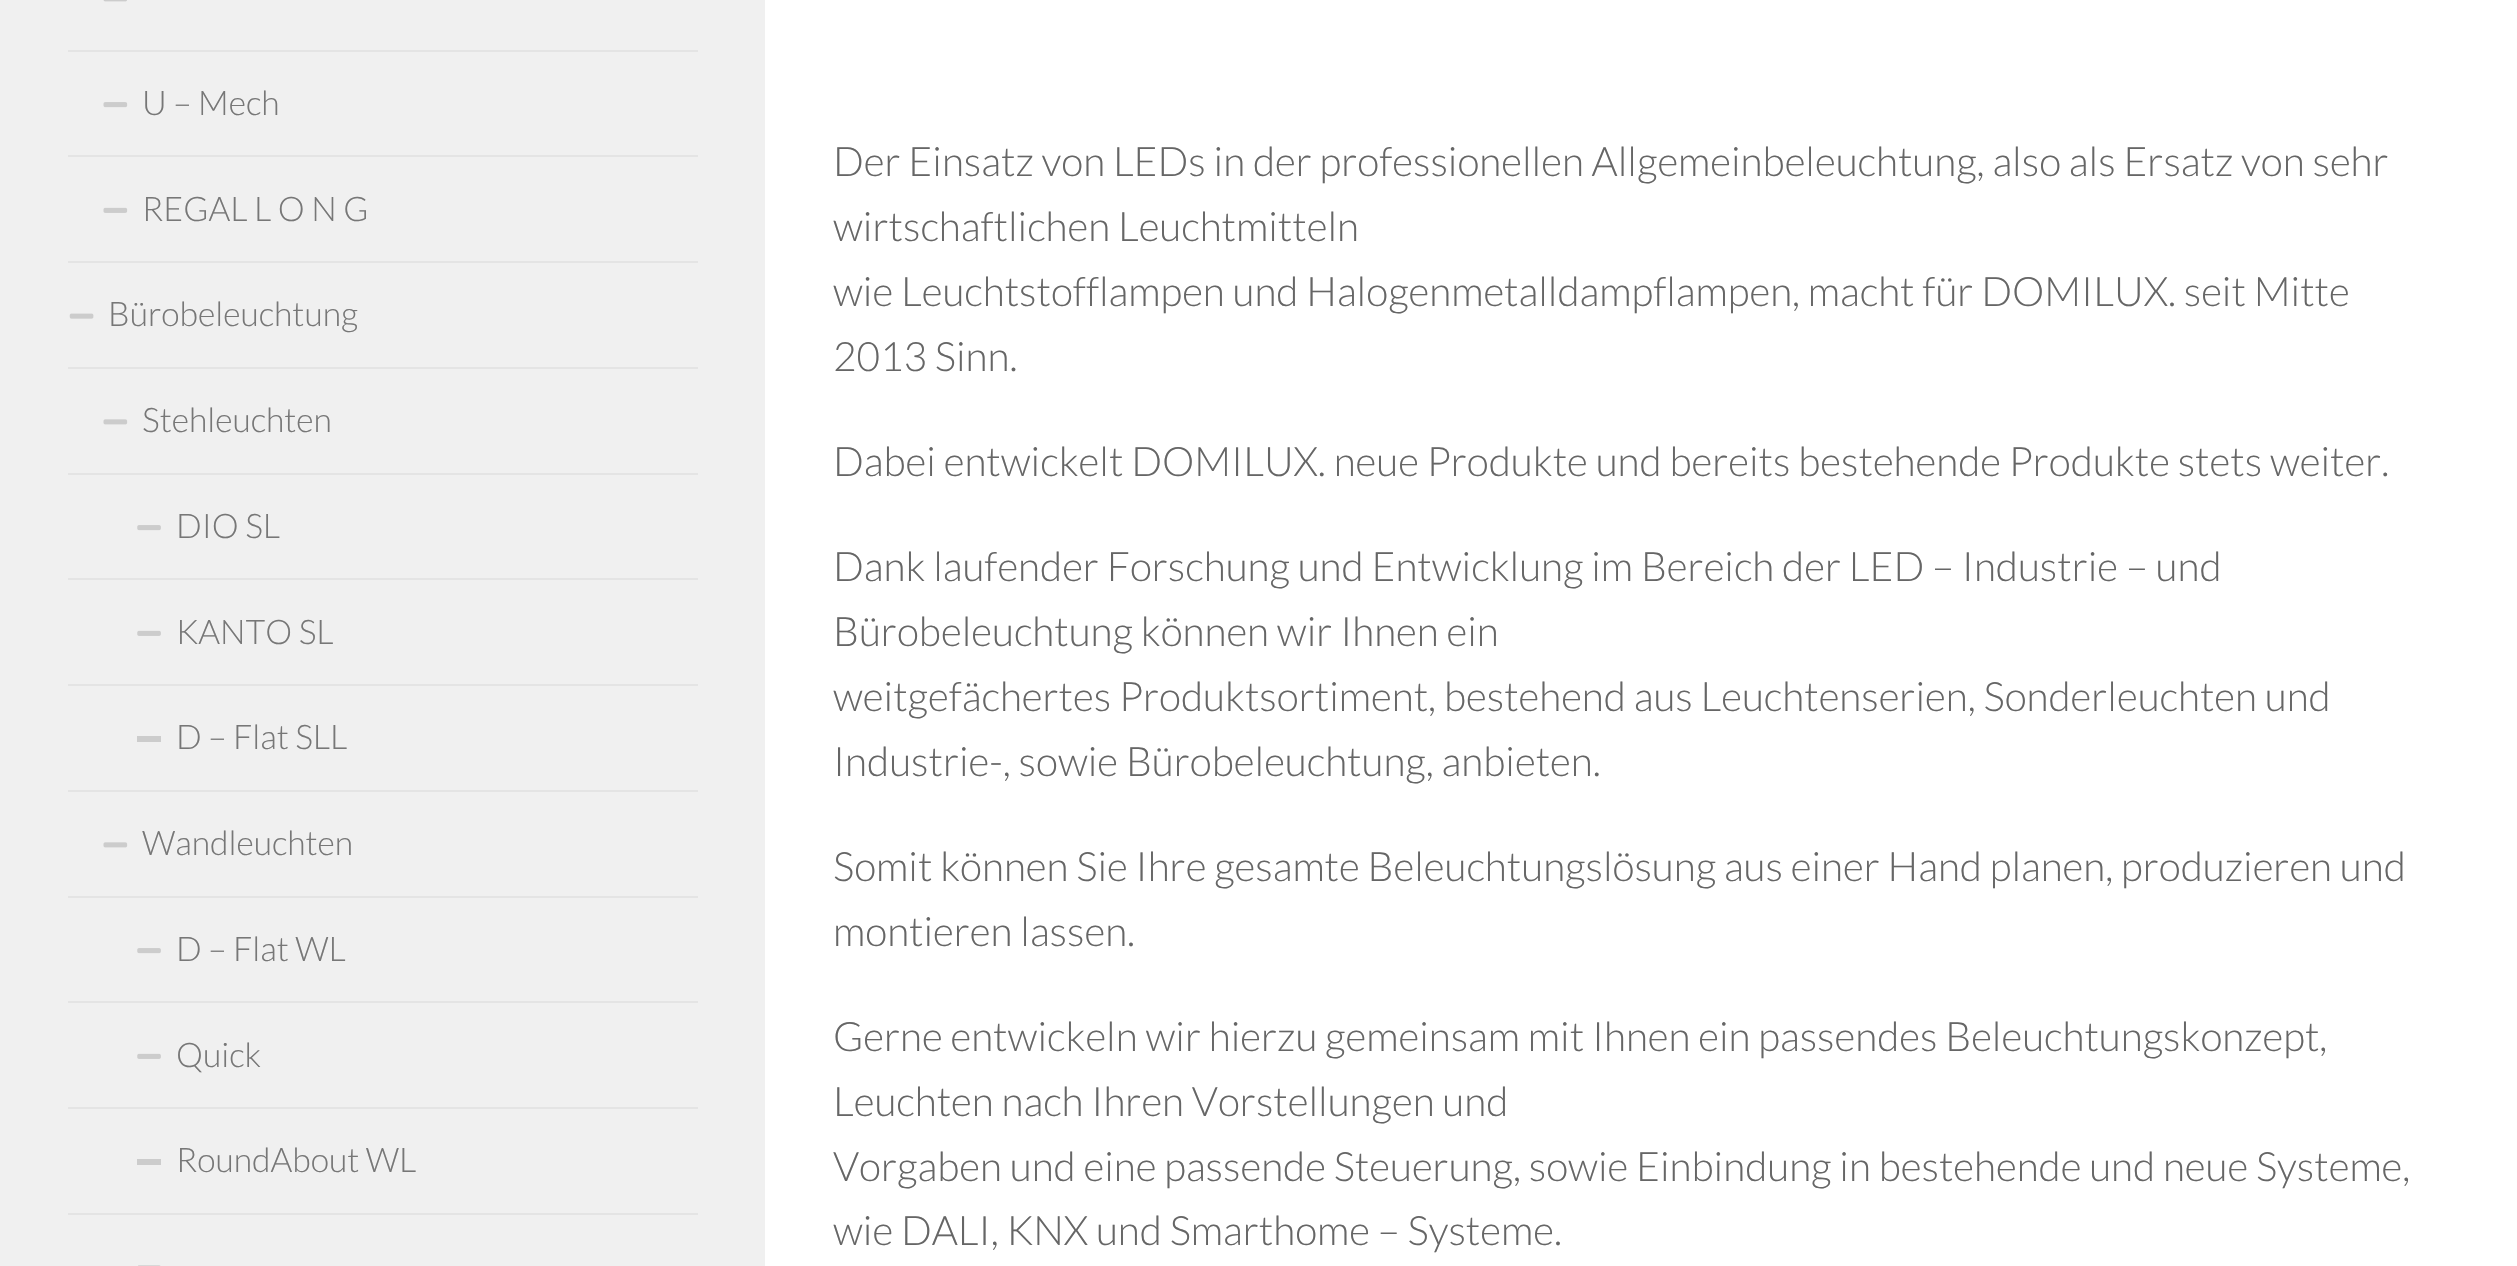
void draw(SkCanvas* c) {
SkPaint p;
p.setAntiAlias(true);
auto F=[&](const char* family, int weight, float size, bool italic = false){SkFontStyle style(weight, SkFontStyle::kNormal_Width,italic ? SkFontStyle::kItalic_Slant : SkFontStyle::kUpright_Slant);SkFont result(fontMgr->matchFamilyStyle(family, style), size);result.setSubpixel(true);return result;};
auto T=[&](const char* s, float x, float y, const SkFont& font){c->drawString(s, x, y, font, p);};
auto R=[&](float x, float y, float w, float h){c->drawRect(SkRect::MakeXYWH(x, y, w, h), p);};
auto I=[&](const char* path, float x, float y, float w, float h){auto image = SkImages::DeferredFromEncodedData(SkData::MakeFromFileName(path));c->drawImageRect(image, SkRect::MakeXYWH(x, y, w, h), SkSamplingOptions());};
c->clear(0xffffffff);
p.setColor(0xfff0f0f0);
R(0,0,765,1266);
p.setColor(0xffe4e4e4);
R(68,50,630,2);
I("1.png",103,0,24,2);
R(68,155,630,2);
I("2.png",103,102,25,6);
auto f1 = F("Lato",300,33.75);
p.setColor(0xff777777);
T("U – Mech",142,115,f1);
p.setColor(0xffe4e4e4);
R(68,261,630,2);
I("3.png",103,207,25,6);
p.setColor(0xff777777);
T("REGAL L O N G",142,221,f1);
p.setColor(0xffe4e4e4);
R(68,367,630,2);
I("4.png",69,313,25,6);
p.setColor(0xff777777);
T("Bürobeleuchtung",108,326,f1);
p.setColor(0xffe4e4e4);
R(68,473,630,2);
I("5.png",103,419,25,6);
p.setColor(0xff777777);
T("Stehleuchten",142,432,f1);
p.setColor(0xffe4e4e4);
R(68,578,630,2);
I("6.png",137,525,24,6);
p.setColor(0xff777777);
T("DIO SL",176,538,f1);
p.setColor(0xffe4e4e4);
R(68,684,630,2);
I("7.png",137,630,24,6);
p.setColor(0xff777777);
T("KANTO SL",176,644,f1);
p.setColor(0xffe4e4e4);
R(68,790,630,2);
p.setColor(0xffcccccc);
R(137,736,24,6);
p.setColor(0xff777777);
T("D – Flat SLL",176,749,f1);
p.setColor(0xffe4e4e4);
R(68,896,630,2);
I("5.png",103,842,25,6);
p.setColor(0xff777777);
T("Wandleuchten",142,855,f1);
p.setColor(0xffe4e4e4);
R(68,1001,630,2);
I("6.png",137,948,24,6);
p.setColor(0xff777777);
T("D – Flat WL",176,961,f1);
p.setColor(0xffe4e4e4);
R(68,1107,630,2);
I("7.png",137,1053,24,6);
p.setColor(0xff777777);
T("Quick",176,1067,f1);
p.setColor(0xffe4e4e4);
R(68,1213,630,2);
p.setColor(0xffcccccc);
R(137,1159,24,6);
p.setColor(0xff777777);
T("RoundAbout WL",176,1172,f1);
I("8.png",138,1265,23,1);
auto f2 = F("Lato",300,40.5);
p.setColor(0xff666666);
T("Der Einsatz von LEDs in der professionellen Allgemeinbeleuchtung, also als Ersatz von sehr",833,176,f2);
T("wirtschaftlichen Leuchtmitteln",833,241,f2);
T("wie Leuchtstofflampen und Halogenmetalldampflampen, macht für DOMILUX. seit Mitte",833,306,f2);
T("2013 Sinn.",833,371,f2);
T("Dabei entwickelt DOMILUX. neue Produkte und bereits bestehende Produkte stets weiter.",833,476,f2);
T("Dank laufender Forschung und Entwicklung im Bereich der LED – Industrie – und",833,581,f2);
T("Bürobeleuchtung können wir Ihnen ein",833,646,f2);
T("weitgefächertes Produktsortiment, bestehend aus Leuchtenserien, Sonderleuchten und",833,711,f2);
T("Industrie-, sowie Bürobeleuchtung, anbieten.",833,776,f2);
T("Somit können Sie Ihre gesamte Beleuchtungslösung aus einer Hand planen, produzieren und",833,881,f2);
T("montieren lassen.",833,946,f2);
T("Gerne entwickeln wir hierzu gemeinsam mit Ihnen ein passendes Beleuchtungskonzept,",833,1051,f2);
T("Leuchten nach Ihren Vorstellungen und",833,1116,f2);
T("Vorgaben und eine passende Steuerung, sowie Einbindung in bestehende und neue Systeme,",833,1181,f2);
T("wie DALI, KNX und Smarthome – Systeme.",833,1245,f2);
}
